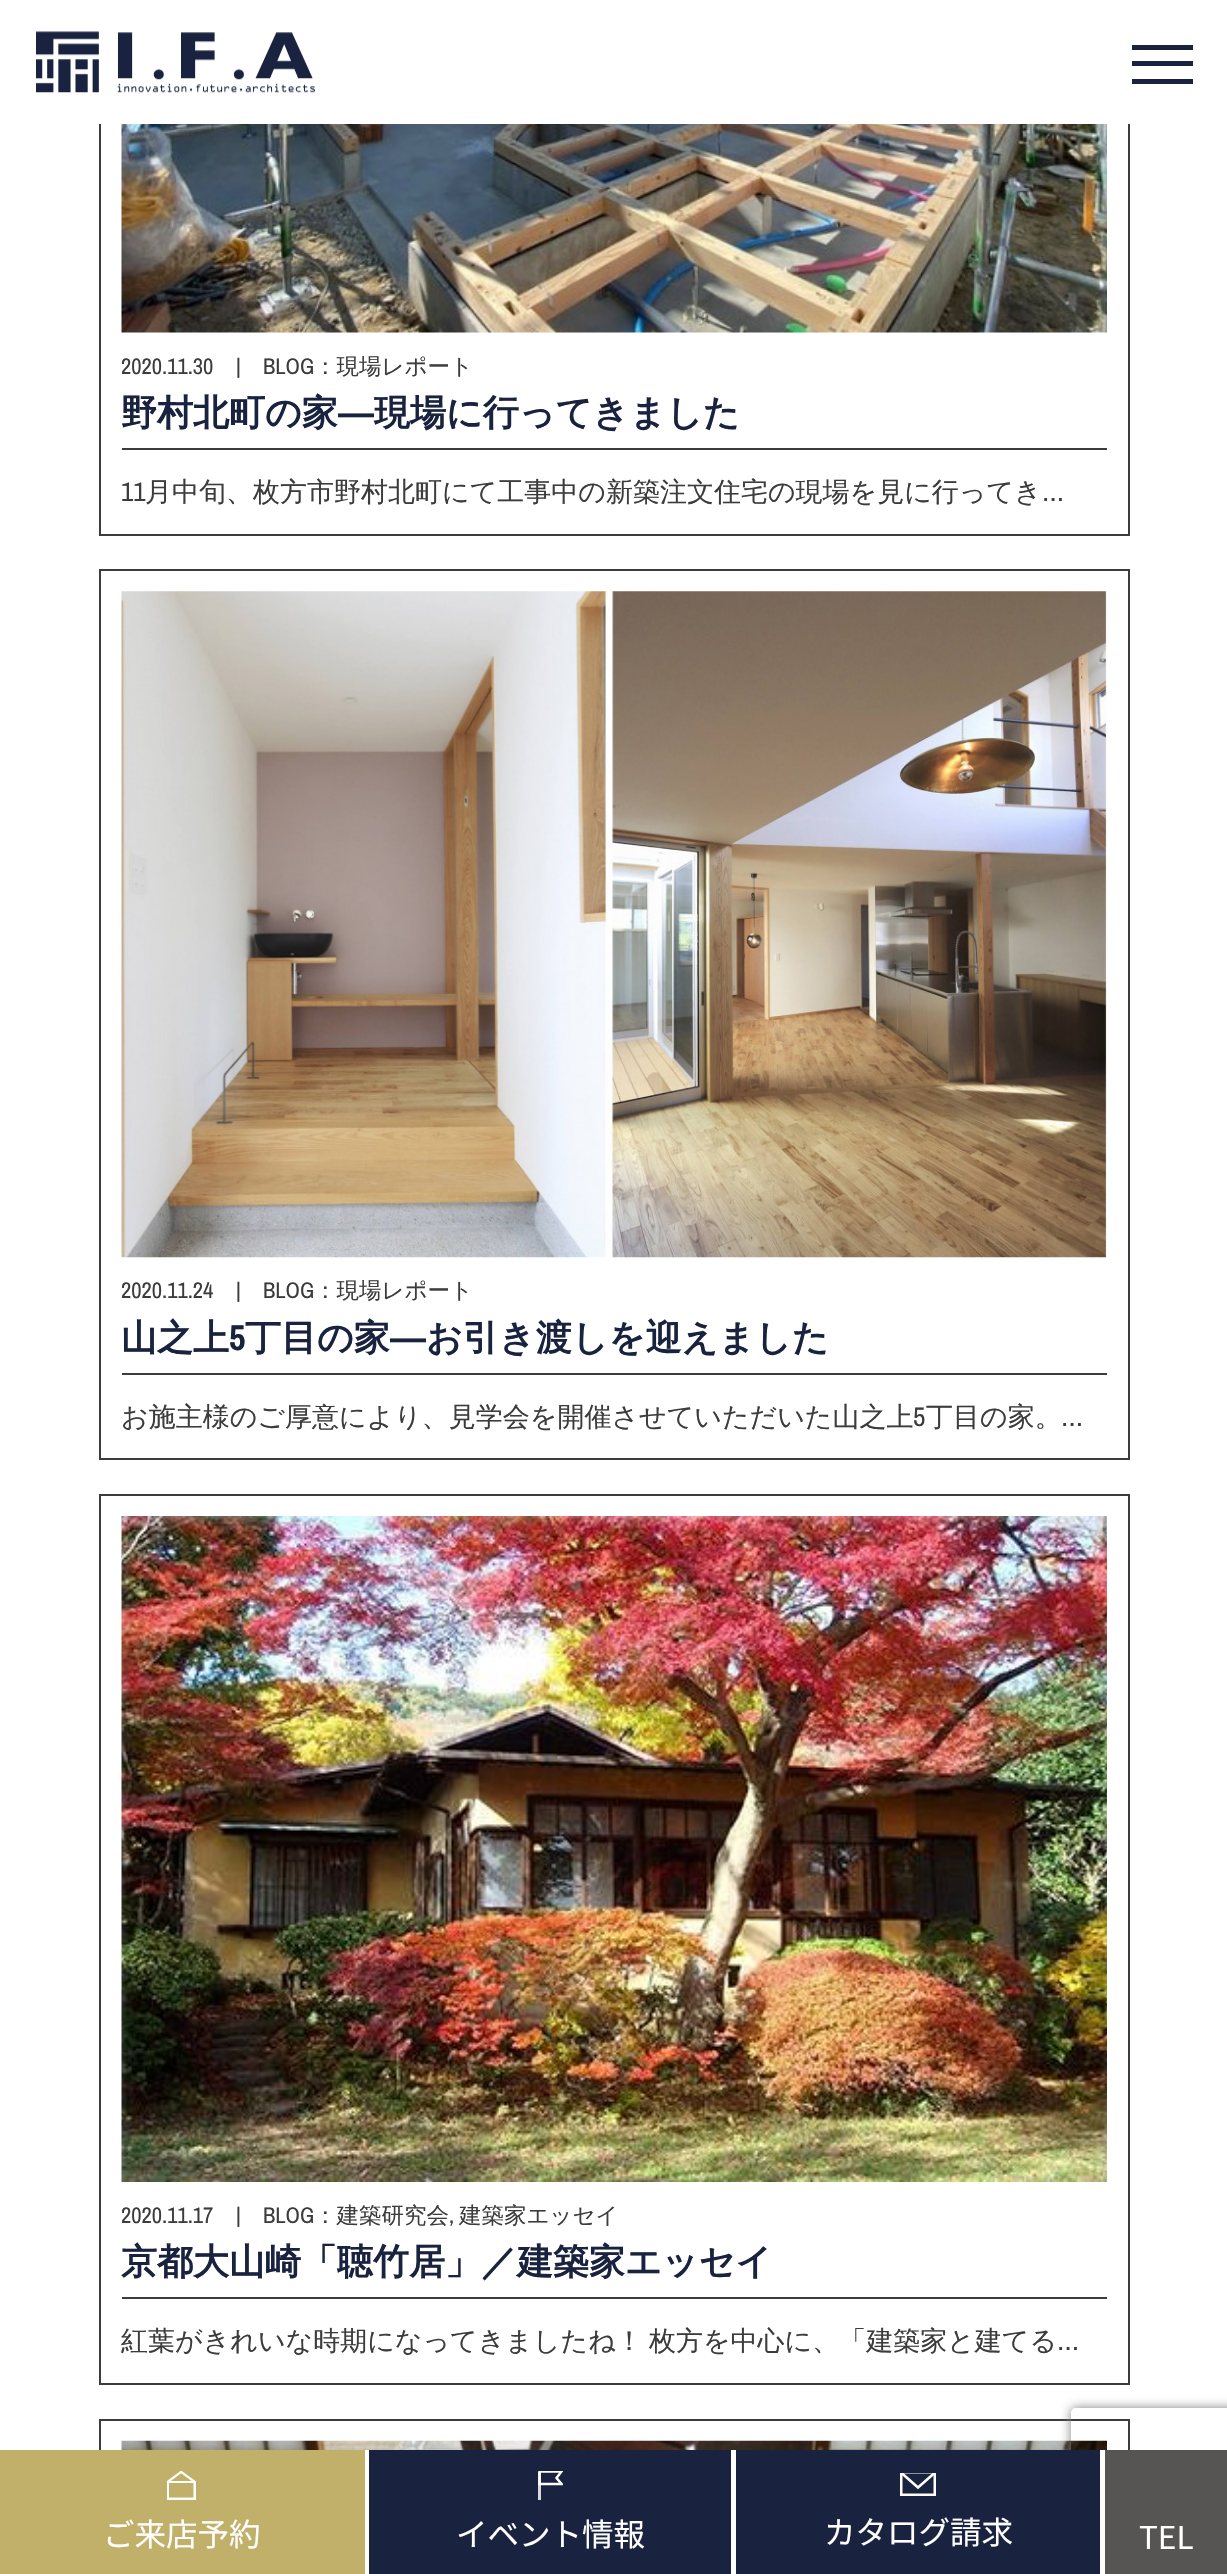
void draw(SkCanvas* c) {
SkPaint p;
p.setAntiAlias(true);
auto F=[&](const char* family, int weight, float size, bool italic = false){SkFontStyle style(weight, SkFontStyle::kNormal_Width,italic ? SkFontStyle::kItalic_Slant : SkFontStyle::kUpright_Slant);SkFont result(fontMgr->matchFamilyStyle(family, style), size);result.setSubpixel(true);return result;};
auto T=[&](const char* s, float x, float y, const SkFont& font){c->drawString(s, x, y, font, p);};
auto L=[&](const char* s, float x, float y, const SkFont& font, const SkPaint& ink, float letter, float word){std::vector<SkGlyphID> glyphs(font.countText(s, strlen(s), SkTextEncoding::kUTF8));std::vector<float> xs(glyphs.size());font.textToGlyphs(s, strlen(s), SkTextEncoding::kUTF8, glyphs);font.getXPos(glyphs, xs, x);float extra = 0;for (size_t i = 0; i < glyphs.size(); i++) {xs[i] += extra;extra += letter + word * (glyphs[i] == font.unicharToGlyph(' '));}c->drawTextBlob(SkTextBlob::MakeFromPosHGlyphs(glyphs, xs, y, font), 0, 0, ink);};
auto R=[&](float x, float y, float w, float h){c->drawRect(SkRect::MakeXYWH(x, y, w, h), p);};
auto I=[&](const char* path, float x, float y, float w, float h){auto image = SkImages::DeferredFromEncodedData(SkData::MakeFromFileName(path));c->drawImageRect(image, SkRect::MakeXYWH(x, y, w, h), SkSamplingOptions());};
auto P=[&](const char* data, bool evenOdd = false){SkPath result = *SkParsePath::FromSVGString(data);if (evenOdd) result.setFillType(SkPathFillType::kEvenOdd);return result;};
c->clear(0xffffffff);
p.setStroke(true);
p.setStrokeWidth(2);
p.setColor(0xff3c3c3c);
c->drawRect(SkRect::MakeXYWH(100,-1,1029,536),p);
p.setStroke(false);
p.setColor(0xffffffff);
R(99,0,1031,124);
I("1.png",36,31,279,62);
p.setColor(0xff19223e);
R(1132,45,61,5);
R(1132,61,61,5);
R(1132,79,61,5);
I("2.png",121,124,986,209);
c->save();
c->clipRect(SkRect::MakeXYWH(122,333,985,56));
auto f1 = F("Archivo Narrow",400,22.5);
p.setColor(0xff3c3c3c);
T("2020.11.30",121,374,f1);
c->restore();
T("|",236,374,f1);
T("BLOG",263,374,f1);
auto f2 = F("WenQuanYi Zen Hei",500,22.5);
T("：現場レポート",314,374,f2);
R(122,448,985,2);
auto f3 = F("WenQuanYi Zen Hei",700,36);
p.setColor(0xff19223f);
T("野村北町の家",121,425,f3);
auto f4 = F("Liberation Sans",700,36);
T("―",338,425,f4);
T("現場に行ってきました",374,425,f3);
auto f5 = F("Archivo Narrow",400,27);
p.setColor(0xff3c3c3c);
T("11",121,501,f5);
auto f6 = F("WenQuanYi Zen Hei",500,27);
T("月中旬、枚方市野村北町にて工事中の新築注文住宅の現場を見に行ってき",145,501,f6);
T("…",1042,501,f5);
p.setStroke(true);
c->drawRect(SkRect::MakeXYWH(100,570,1029,889),p);
I("3.png",121,591,986,667);
c->save();
c->clipRect(SkRect::MakeXYWH(122,1258,985,56));
p.setStroke(false);
T("2020.11.24",121,1298,f1);
c->restore();
T("|",236,1298,f1);
T("BLOG",263,1298,f1);
T("：現場レポート",314,1298,f2);
R(122,1373,985,2);
p.setColor(0xff19223f);
T("山之上",121,1350,f3);
auto f7 = F("Archivo Narrow",700,36);
T("5",229,1350,f7);
T("丁目の家",245,1350,f3);
T("―",390,1350,f4);
T("お引き渡しを迎えました",426,1350,f3);
p.setColor(0xff3c3c3c);
T("お施主様のご厚意により、見学会を開催させていただいた山之上",121,1426,f6);
T("5",913,1426,f5);
T("丁目の家。",926,1426,f6);
T("…",1061,1426,f5);
p.setStroke(true);
c->drawRect(SkRect::MakeXYWH(100,1495,1029,889),p);
I("4.png",121,1516,986,666);
c->save();
c->clipRect(SkRect::MakeXYWH(122,2183,985,56));
p.setStroke(false);
T("2020.11.17",121,2223,f1);
c->restore();
T("|",236,2223,f1);
T("BLOG",263,2223,f1);
T("：建築研究会",314,2223,f2);
T(",",449,2223,f1);
T("建築家エッセイ",459,2223,f2);
R(122,2297,985,2);
p.setColor(0xff19223f);
T("京都大山崎「聴竹居」／建築家エッセイ",121,2274,f3);
p.setColor(0xff3c3c3c);
L("紅葉がきれいな時期になってきましたね！ 枚方を中心に、「建築家と建てる",121,2350,f6,p,0,-2);
T("…",1057,2350,f5);
p.setStroke(true);
c->drawRect(SkRect::MakeXYWH(100,2420,1029,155),p);
I("5.png",121,2440,986,10);
c->save();
c->clipPath(P("M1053 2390h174v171h-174zm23 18h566c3 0 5 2 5 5v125c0 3-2 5-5 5h-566c-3 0-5-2-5-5v-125c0-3 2-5 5-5z",true),true);
p.setStroke(false);
p.setColor(0xff808080);
p.setMaskFilter(SkMaskFilter::MakeBlur(kNormal_SkBlurStyle, 5.5));
c->drawRoundRect(SkRect::MakeXYWH(1071,2408,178,135),5,5,p);
p.setMaskFilter(nullptr);
c->restore();
p.setColor(0xffffffff);
R(1060,2450,45,104);
p.setColor(0xffc1b069);
R(0,2450,365,124);
I("6.png",167,2471,29,29);
auto f8 = F("Noto Sans JP",400,31.5);
p.setColor(0xffffffff);
T("ご来店予約",103,2546,f8);
p.setColor(0xff19223e);
R(369,2450,362,124);
p.setColor(0xffd9dadf);
R(538,2472,3,28);
c->save();
c->clipRect(SkRect::MakeXYWH(538,2471,25,29));
p.setStroke(true);
p.setStrokeWidth(2.5);
p.setColor(0xffffffff);
c->drawPath(P("M561.5 2484h-22v-12.5h22l-5 6.5z"),p);
c->restore();
p.setStroke(false);
T("イベント情報",456,2546,f8);
p.setColor(0xff19223e);
R(736,2450,364,124);
c->save();
c->clipRect(SkRect::MakeXYWH(900,2473,36,25));
p.setStroke(true);
p.setColor(0xffffffff);
c->drawRect(SkRect::MakeXYWH(901.25,2472.25,33.5,22.5),p);
p.setStrokeWidth(2.6);
c->drawPath(P("M901.5 2473l16.5 14.5l16.5-14.5"),p);
c->restore();
p.setStroke(false);
T("カタログ請求",824,2544,f8);
p.setColor(0xff575454);
R(1105,2450,122,124);
p.setColor(0xffffffff);
T("TEL",1139,2549,f8);
}
